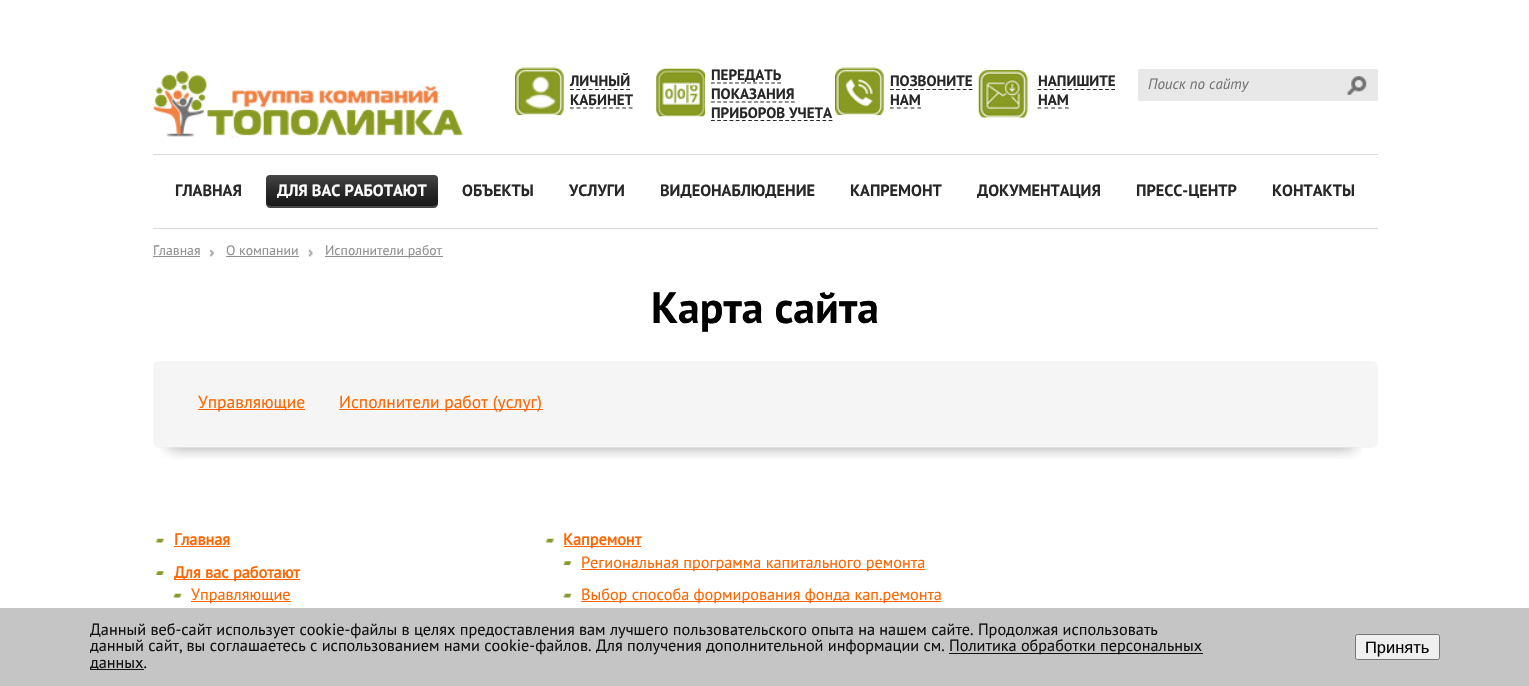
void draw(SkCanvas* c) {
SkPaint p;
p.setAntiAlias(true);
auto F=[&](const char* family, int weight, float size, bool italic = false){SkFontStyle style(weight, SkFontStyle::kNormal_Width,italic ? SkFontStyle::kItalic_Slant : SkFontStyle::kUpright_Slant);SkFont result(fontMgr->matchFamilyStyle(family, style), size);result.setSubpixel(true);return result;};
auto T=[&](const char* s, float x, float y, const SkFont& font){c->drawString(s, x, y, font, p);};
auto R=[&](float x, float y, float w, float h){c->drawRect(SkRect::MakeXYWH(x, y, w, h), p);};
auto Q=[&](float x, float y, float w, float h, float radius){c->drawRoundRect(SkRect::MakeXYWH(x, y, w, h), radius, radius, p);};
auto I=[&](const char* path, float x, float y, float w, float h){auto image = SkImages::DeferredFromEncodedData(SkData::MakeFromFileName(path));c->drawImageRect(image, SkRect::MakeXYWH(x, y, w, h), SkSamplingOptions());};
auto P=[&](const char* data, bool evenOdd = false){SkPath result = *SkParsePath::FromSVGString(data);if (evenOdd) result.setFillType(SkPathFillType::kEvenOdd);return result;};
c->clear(0xffffffff);
I("1.png",153,71,310,67);
I("2.png",515,67,49,48);
p.setStroke(true);
p.setStrokeWidth(1.2);
p.setColor(0xff272727);
p.setPathEffect(SkDashPathEffect::Make({{3.75f,2.5f}}, 0));
c->drawPath(P("M570 89.5h60"),p);
p.setPathEffect(nullptr);
auto f1 = F("PT Sans",700,15);
p.setStroke(false);
T("ЛИЧНЫЙ",570,86,f1);
p.setStroke(true);
p.setPathEffect(SkDashPathEffect::Make({{3.75f,2.78f}}, 0));
c->drawPath(P("M570 108h62.5"),p);
p.setPathEffect(nullptr);
p.setStroke(false);
T("КАБИНЕТ",570,105,f1);
I("3.png",656,68,49,49);
p.setStroke(true);
p.setPathEffect(SkDashPathEffect::Make({{3.75f,2.27f}}, 0));
c->drawPath(P("M711 83h70"),p);
p.setPathEffect(nullptr);
p.setStroke(false);
T("ПЕРЕДАТЬ",711,80,f1);
p.setStroke(true);
p.setPathEffect(SkDashPathEffect::Make({{3.75f,2.4f}}, 0));
c->drawPath(P("M711 102h84"),p);
p.setPathEffect(nullptr);
p.setStroke(false);
T("ПОКАЗАНИЯ",711,99,f1);
p.setStroke(true);
p.setPathEffect(SkDashPathEffect::Make({{3.75f,2.44f}}, 0));
c->drawPath(P("M711 120.5h121.5"),p);
p.setPathEffect(nullptr);
p.setStroke(false);
T("ПРИБОРОВ УЧЕТА",711,118,f1);
I("4.png",835,67,49,48);
p.setStroke(true);
p.setPathEffect(SkDashPathEffect::Make({{3.75f,2.31f}}, 0));
c->drawPath(P("M890 89.5h82.5"),p);
p.setPathEffect(nullptr);
p.setStroke(false);
T("ПОЗВОНИТЕ",890,86,f1);
p.setStroke(true);
p.setPathEffect(SkDashPathEffect::Make({{3.75f,3.12f}}, 0));
c->drawPath(P("M890 108h31"),p);
p.setPathEffect(nullptr);
p.setStroke(false);
T("НАМ",890,105,f1);
I("5.png",978,70,50,48);
p.setStroke(true);
p.setPathEffect(SkDashPathEffect::Make({{3.75f,2.4f}}, 0));
c->drawPath(P("M1037.5 89.5h77.5"),p);
p.setPathEffect(nullptr);
p.setStroke(false);
T("НАПИШИТЕ",1038,86,f1);
p.setStroke(true);
p.setPathEffect(SkDashPathEffect::Make({{3.75f,3.12f}}, 0));
c->drawPath(P("M1037.5 108h31.5"),p);
p.setPathEffect(nullptr);
p.setStroke(false);
T("НАМ",1038,105,f1);
p.setColor(0xffe8e8e8);
Q(1138,69,240,32,2.5);
auto f2 = F("PT Sans",400,15,true);
p.setColor(0xff757575);
T("Поиск по сайту",1148,89,f2);
I("6.png",1347,76,20,19);
p.setColor(0xffd9d9d9);
R(153,154,1225,1);
R(153,228,1225,1);
auto f3 = F("PT Sans",700,16.25);
p.setColor(0xff272727);
T("ГЛАВНАЯ",175,196,f3);
p.setColor(0xff474747);
c->drawPath(P("M266 179v25c0 2 2 4 4 4h164c2 0 4-2 4-4v-24l-1-2l1 17c0 3 1 11-4 11h-164c-4 0-4-5-4-7z"),p);
{
const SkColor colors[] = {0xff464646,0xff2b2b2b,0xff191919};
const float stops[] = {0,.47,1};
const SkPoint ends[] = {{352,175}, {352,206}};
p.setShader(SkGradientShader::MakeLinear(ends, colors, stops, 3, SkTileMode::kClamp));
p.setAlpha(255);
}
Q(266,175,172,31,4);
p.setShader(nullptr);
p.setColor(0xffffffff);
T("ДЛЯ ВАС РАБОТАЮТ",277,196,f3);
p.setColor(0xff272727);
T("ОБЪЕКТЫ",462,196,f3);
T("УСЛУГИ",569,196,f3);
T("ВИДЕОНАБЛЮДЕНИЕ",660,196,f3);
T("КАПРЕМОНТ",850,196,f3);
T("ДОКУМЕНТАЦИЯ",977,196,f3);
T("ПРЕСС-ЦЕНТР",1136,196,f3);
T("КОНТАКТЫ",1272,196,f3);
auto f4 = F("PT Sans",400,13.75);
p.setColor(0xff909090);
T("Главная",153,255,f4);
R(153,256,47,1);
I("7.png",209,249,5,8);
T("О компании",226,255,f4);
R(226,256,73,1);
I("8.png",308,249,5,8);
R(325,256,118,1);
T("Исполнители работ",325,255,f4);
auto f5 = F("PT Sans",700,43.75);
p.setColor(0xff000000);
T("Карта сайта",651,323,f5);
p.setColor(0xfff5f5f5);
Q(153,361,1225,87,6);
p.setColor(0xffff6600);
R(198,409,107,1);
auto f6 = F("PT Sans",400,17.5);
T("Управляющие",198,408,f6);
R(339,409,204,1);
T("Исполнители работ (услуг)",339,408,f6);
I("9.png",160,447,1202,12);
I("10.png",156,538,8,5);
auto f7 = F("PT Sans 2",700,16.25);
T("Главная",174,545,f7);
R(174,546,56,1);
I("11.png",156,571,8,4);
R(174,579,126,1);
T("Для вас работают",174,578,f7);
I("12.png",173,593,9,5);
R(191,601,100,1);
auto f8 = F("PT Sans",400,16.25);
T("Управляющие",191,600,f8);
I("10.png",546,538,8,5);
R(564,546,77,1);
T("Капремонт",563,545,f7);
I("13.png",563,561,9,4);
R(581,569,344,1);
T("Региональная программа капитального ремонта",581,568,f8);
I("12.png",563,593,9,5);
R(581,601,360,1);
T("Выбор способа формирования фонда кап.ремонта",581,600,f8);
p.setColor(0xffc5c5c5);
R(0,608,1529,78);
p.setColor(0xff111111);
T("Данный веб-сайт использует cookie-файлы в целях предоставления вам лучшего пользовательского опыта на нашем сайте. Продолжая использовать",90,635,f8);
T("данный сайт, вы соглашаетесь с использованием нами cookie-файлов. Для получения дополнительной информации см.",90,651,f8);
R(949,653,254,1);
T("Политика обработки персональных",949,651,f8);
R(90,669,54,1);
T("данных.",90,668,f8);
p.setColor(0xffefefef);
c->drawRoundRect(SkRect::MakeXYWH(1355.5,634.5,84,25),2,2,p);
p.setStroke(true);
p.setStrokeWidth(1);
p.setColor(0xff767676);
c->drawRoundRect(SkRect::MakeXYWH(1355.5,634.5,84,25),2,2,p);
auto f9 = F("Liberation Sans",400,16.5);
p.setStroke(false);
p.setColor(0xff000000);
T("Принять",1365,653,f9);
}
